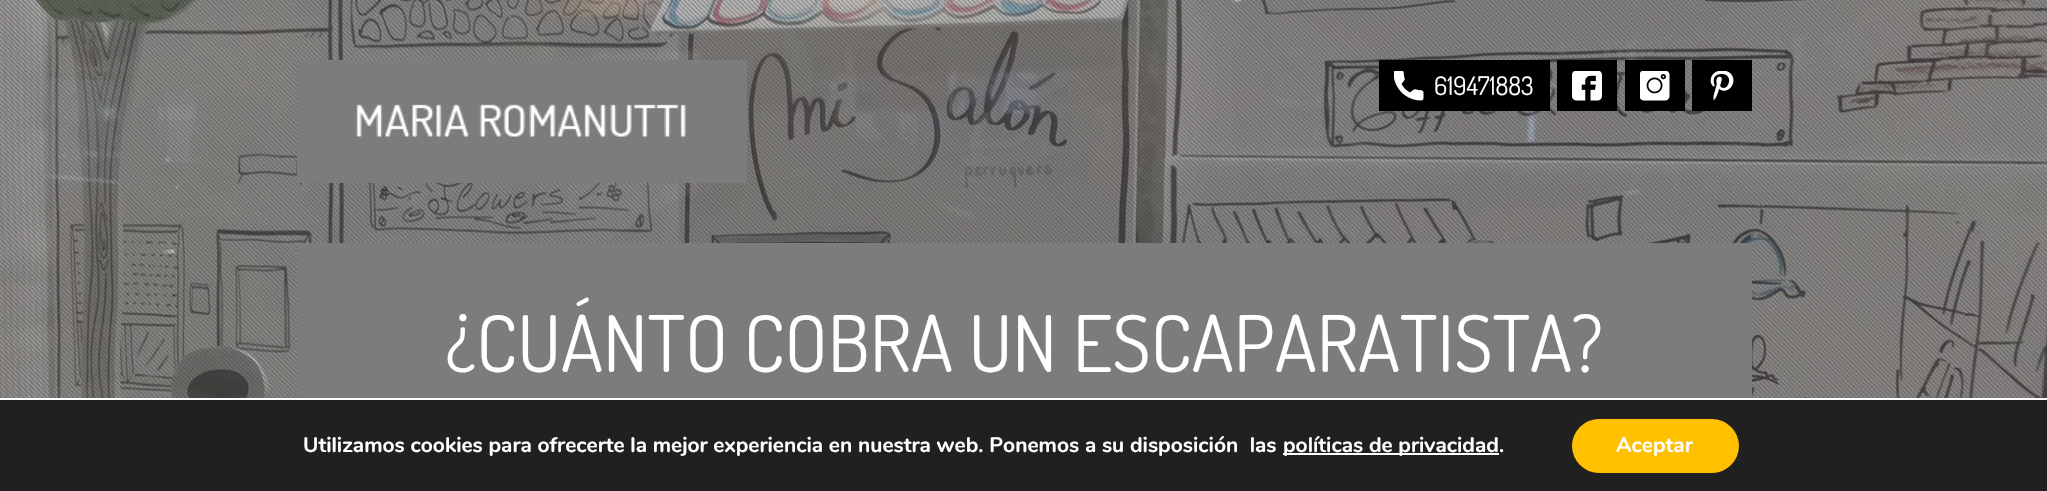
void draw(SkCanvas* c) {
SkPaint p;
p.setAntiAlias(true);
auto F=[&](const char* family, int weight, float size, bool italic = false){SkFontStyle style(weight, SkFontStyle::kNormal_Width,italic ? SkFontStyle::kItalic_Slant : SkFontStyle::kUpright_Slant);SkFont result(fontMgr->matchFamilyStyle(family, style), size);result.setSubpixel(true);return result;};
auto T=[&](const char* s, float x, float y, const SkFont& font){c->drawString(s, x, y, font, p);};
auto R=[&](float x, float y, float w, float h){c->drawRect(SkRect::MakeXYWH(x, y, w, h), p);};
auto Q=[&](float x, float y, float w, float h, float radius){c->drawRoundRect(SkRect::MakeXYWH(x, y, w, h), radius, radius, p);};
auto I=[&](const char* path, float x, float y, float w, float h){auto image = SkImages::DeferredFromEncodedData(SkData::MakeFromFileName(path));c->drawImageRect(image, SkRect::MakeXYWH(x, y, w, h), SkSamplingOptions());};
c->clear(0xffffffff);
I("1.png",0,0,2047,398);
I("2.png",0,0,2047,398);
p.setColor(0xff7c7c7c);
R(297,60,450,123);
I("3.png",356,104,330,33);
p.setColor(0xff000000);
R(1379,60,171,51);
I("4.png",1394,71,30,30);
auto f1 = F("Dosis",200,25.5);
p.setColor(0xffffffff);
T("619471883",1434,95,f1);
p.setColor(0xff000000);
R(1557,60,60,51);
I("5.png",1572,71,30,30);
R(1625,60,60,51);
I("6.png",1640,71,30,30);
R(1692,60,60,51);
I("7.png",1710,71,24,30);
p.setColor(0xff7c7c7c);
R(297,243,1455,155);
auto f2 = F("Dosis",200,78);
p.setColor(0xffffffff);
T("¿CUÁNTO COBRA UN ESCAPARATISTA?",445,372,f2);
p.setColor(0xff202020);
R(0,400,2047,91);
auto f3 = F("Nunito",700,21);
p.setColor(0xffffffff);
T("Utilizamos cookies para ofrecerte la mejor experiencia en nuestra web. Ponemos a su disposición  las",303,452,f3);
R(1283,453,216,2);
T("políticas de privacidad.",1283,452,f3);
p.setColor(0xffffc000);
Q(1572,419,167,54,27);
p.setColor(0xffffffff);
T("Aceptar",1616,452,f3);
}
